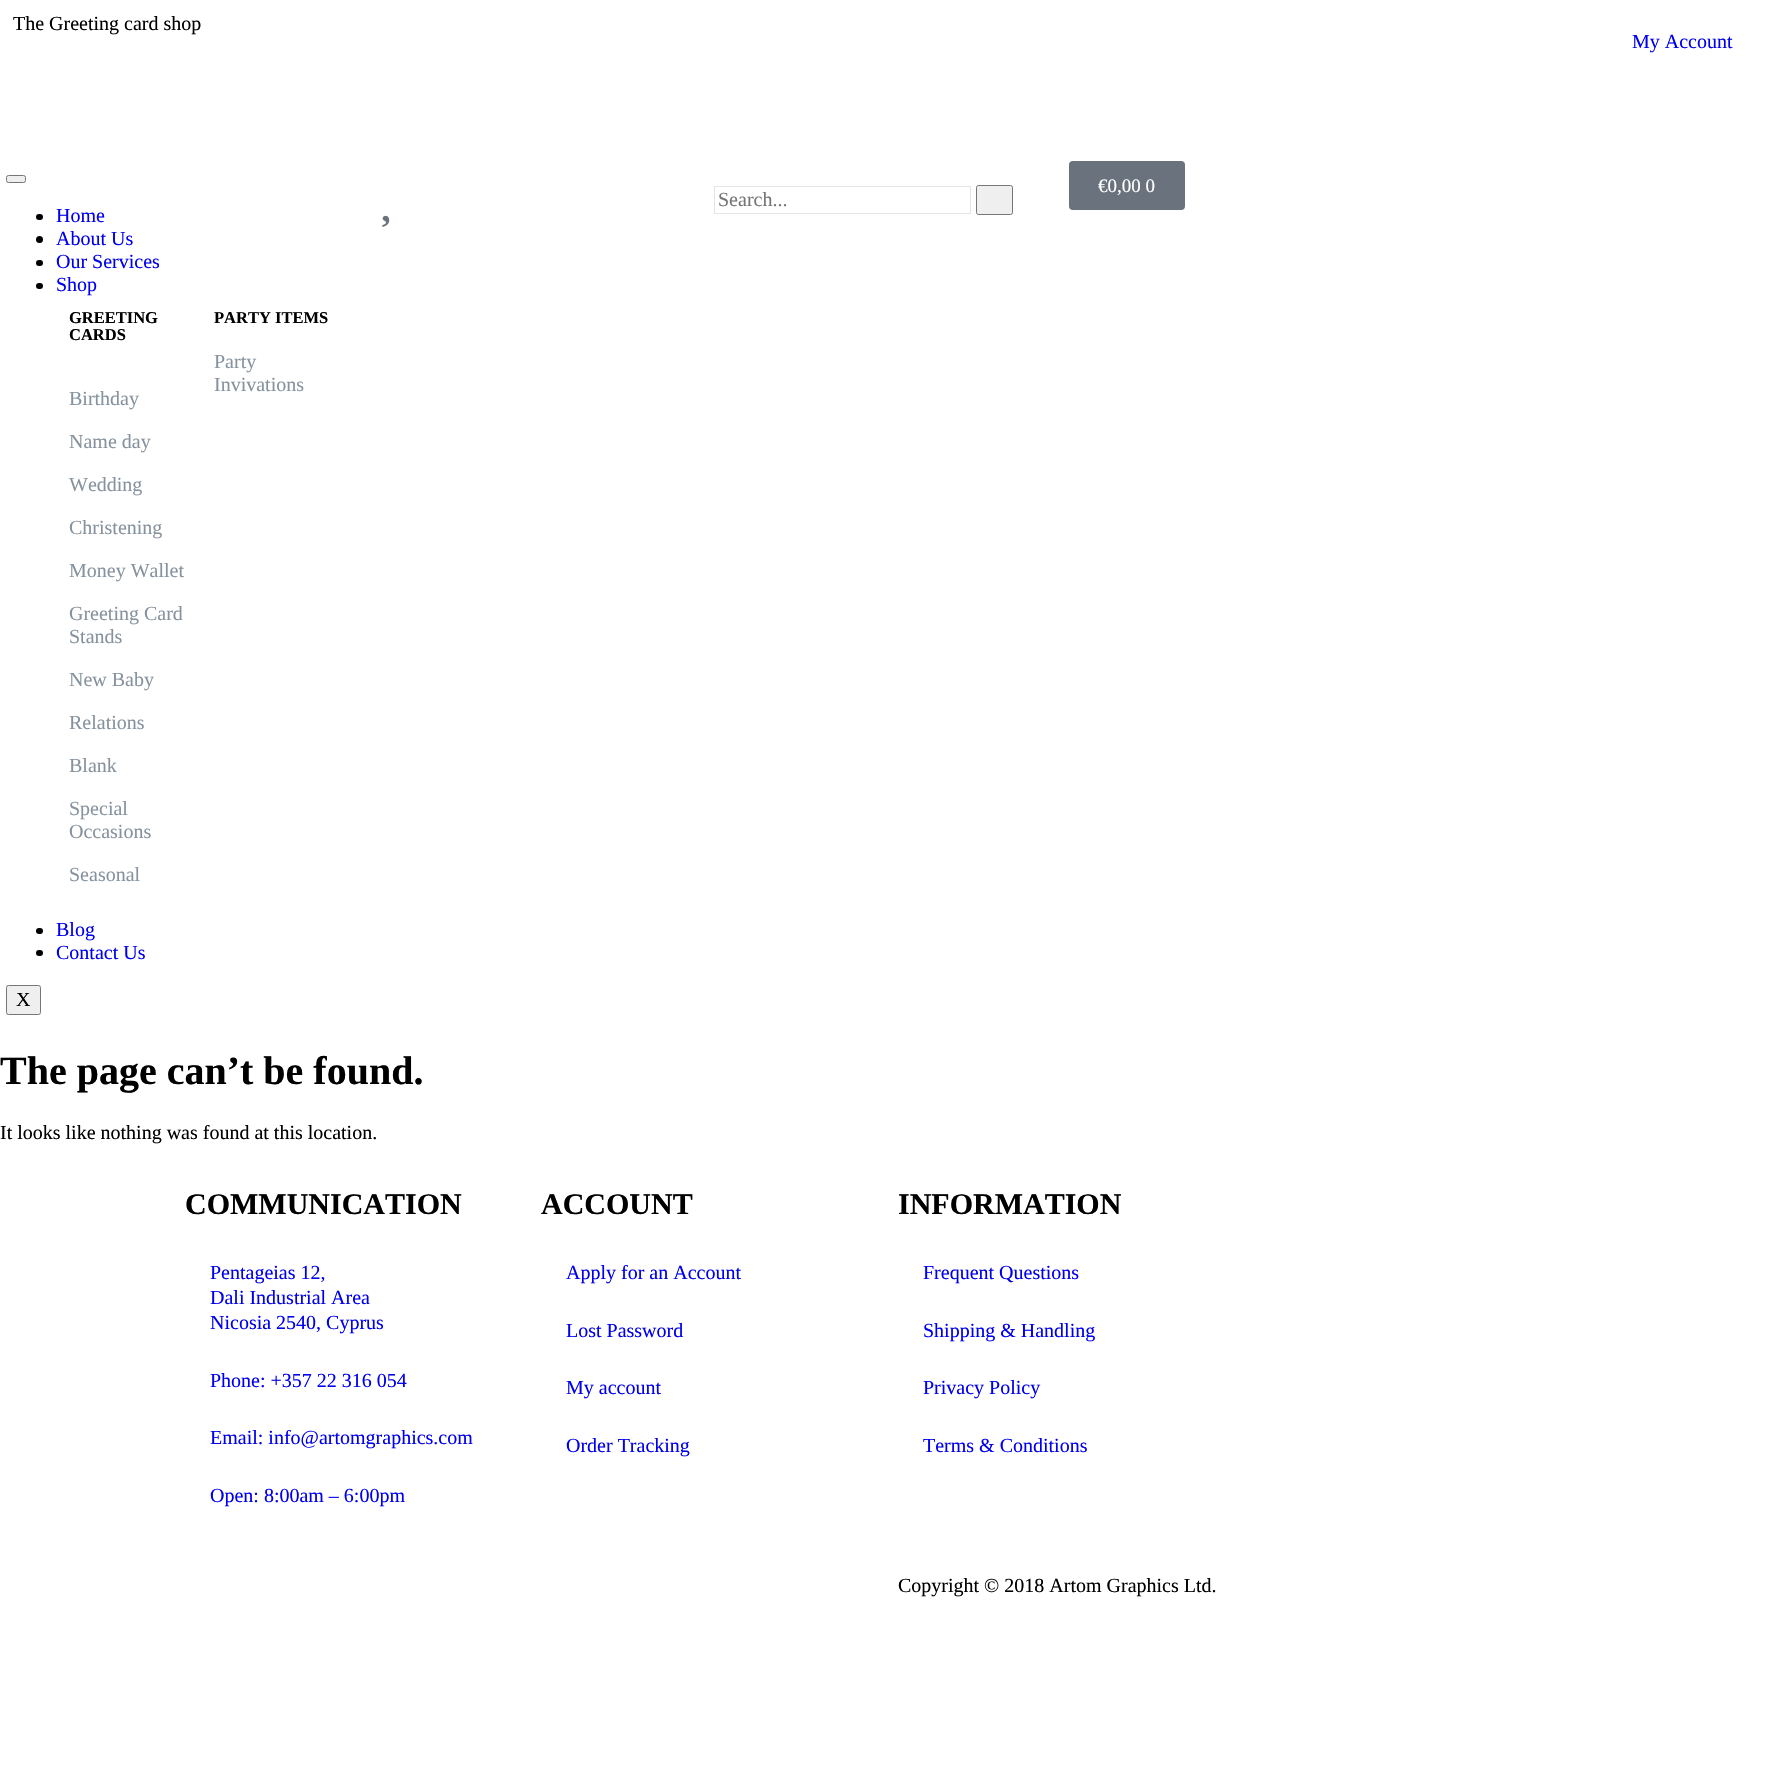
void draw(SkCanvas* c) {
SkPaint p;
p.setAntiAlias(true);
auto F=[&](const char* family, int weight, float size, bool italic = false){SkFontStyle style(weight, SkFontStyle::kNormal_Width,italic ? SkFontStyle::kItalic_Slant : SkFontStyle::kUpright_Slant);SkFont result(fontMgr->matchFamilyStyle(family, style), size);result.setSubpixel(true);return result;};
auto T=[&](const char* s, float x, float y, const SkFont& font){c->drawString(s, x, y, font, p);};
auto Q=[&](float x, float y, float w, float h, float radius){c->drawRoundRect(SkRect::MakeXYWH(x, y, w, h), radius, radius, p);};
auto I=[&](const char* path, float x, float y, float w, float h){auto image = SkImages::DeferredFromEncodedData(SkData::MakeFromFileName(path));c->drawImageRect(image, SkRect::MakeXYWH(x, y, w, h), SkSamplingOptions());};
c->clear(0xffffffff);
auto f1 = F("Liberation Serif",400,20);
p.setColor(0xff000000);
T("The Greeting card shop",13,30,f1);
p.setColor(0xff0000ee);
T("My Account",1632,48,f1);
p.setColor(0xff69727d);
Q(1069,161,116,49,4);
auto f2 = F("Liberation Serif",400,19);
p.setColor(0xffffffff);
T("€0,00 0",1098,192,f2);
p.setStroke(true);
p.setStrokeWidth(1);
p.setColor(0xffe5e5e5);
c->drawRect(SkRect::MakeXYWH(714.5,186.5,256,27),p);
p.setStroke(false);
p.setColor(0xff757575);
T("Search...",718,206,f1);
p.setColor(0xffefefef);
c->drawRoundRect(SkRect::MakeXYWH(976.5,185.5,36,29),2,2,p);
p.setStroke(true);
p.setColor(0xff767676);
c->drawRoundRect(SkRect::MakeXYWH(976.5,185.5,36,29),2,2,p);
p.setStroke(false);
p.setColor(0xffefefef);
c->drawRoundRect(SkRect::MakeXYWH(6.5,175.5,19,7),2,2,p);
p.setStroke(true);
p.setColor(0xff767676);
c->drawRoundRect(SkRect::MakeXYWH(6.5,175.5,19,7),2,2,p);
p.setStroke(false);
p.setColor(0xff000000);
Q(36,214,7,6,3);
p.setColor(0xff0000ee);
T("Home",56,222,f1);
p.setColor(0xff000000);
c->drawCircle(39.5,239.5,3.5,p);
p.setColor(0xff0000ee);
T("About Us",56,245,f1);
p.setColor(0xff000000);
Q(36,260,7,6,3);
p.setColor(0xff0000ee);
T("Our Services",56,268,f1);
p.setColor(0xff000000);
Q(36,283,7,6,3);
p.setColor(0xff0000ee);
T("Shop",56,291,f1);
auto f3 = F("Liberation Serif",700,16.5);
p.setColor(0xff000000);
T("GREETING",69,323,f3);
T("CARDS",69,340,f3);
p.setColor(0xff86939e);
T("Birthday",69,405,f1);
T("Name day",69,448,f1);
T("Wedding",69,491,f1);
T("Christening",69,534,f1);
T("Money Wallet",69,577,f1);
T("Greeting Card",69,620,f1);
T("Stands",69,643,f1);
T("New Baby",69,686,f1);
T("Relations",69,729,f1);
T("Blank",69,772,f1);
T("Special",69,815,f1);
T("Occasions",69,838,f1);
T("Seasonal",69,881,f1);
p.setColor(0xff000000);
T("PARTY ITEMS",214,323,f3);
p.setColor(0xff86939e);
T("Party",214,368,f1);
T("Invivations",214,391,f1);
p.setColor(0xff000000);
Q(36,928,7,6,3);
p.setColor(0xff0000ee);
T("Blog",56,936,f1);
p.setColor(0xff000000);
Q(36,950,7,6,3);
p.setColor(0xff0000ee);
T("Contact Us",56,959,f1);
p.setColor(0xffefefef);
c->drawRoundRect(SkRect::MakeXYWH(6.5,985.5,34,29),2,2,p);
p.setStroke(true);
p.setColor(0xff767676);
c->drawRoundRect(SkRect::MakeXYWH(6.5,985.5,34,29),2,2,p);
p.setStroke(false);
p.setColor(0xff000000);
T("X",16,1006,f1);
I("1.png",382,215,8,12);
auto f4 = F("Liberation Serif",700,40);
T("The page can’t be found.",0,1084,f4);
T("It looks like nothing was found at this location.",0,1139,f1);
auto f5 = F("Liberation Serif",700,30);
T("COMMUNICATION",185,1214,f5);
p.setColor(0xff0000ee);
T("Pentageias 12,",210,1279,f1);
T("Dali Industrial Area",210,1304,f1);
T("Nicosia 2540, Cyprus",210,1329,f1);
T("Phone: +357 22 316 054",210,1387,f1);
T("Email: info@artomgraphics.com",210,1444,f1);
T("Open: 8:00am – 6:00pm",210,1502,f1);
p.setColor(0xff000000);
T("ACCOUNT",541,1214,f5);
p.setColor(0xff0000ee);
T("Apply for an Account",566,1279,f1);
T("Lost Password",566,1337,f1);
T("My account",566,1394,f1);
T("Order Tracking",566,1452,f1);
p.setColor(0xff000000);
T("INFORMATION",898,1214,f5);
p.setColor(0xff0000ee);
T("Frequent Questions",923,1279,f1);
T("Shipping & Handling",923,1337,f1);
T("Privacy Policy",923,1394,f1);
T("Terms & Conditions",923,1452,f1);
p.setColor(0xff000000);
T("Copyright © 2018 Artom Graphics Ltd.",898,1592,f1);
}
